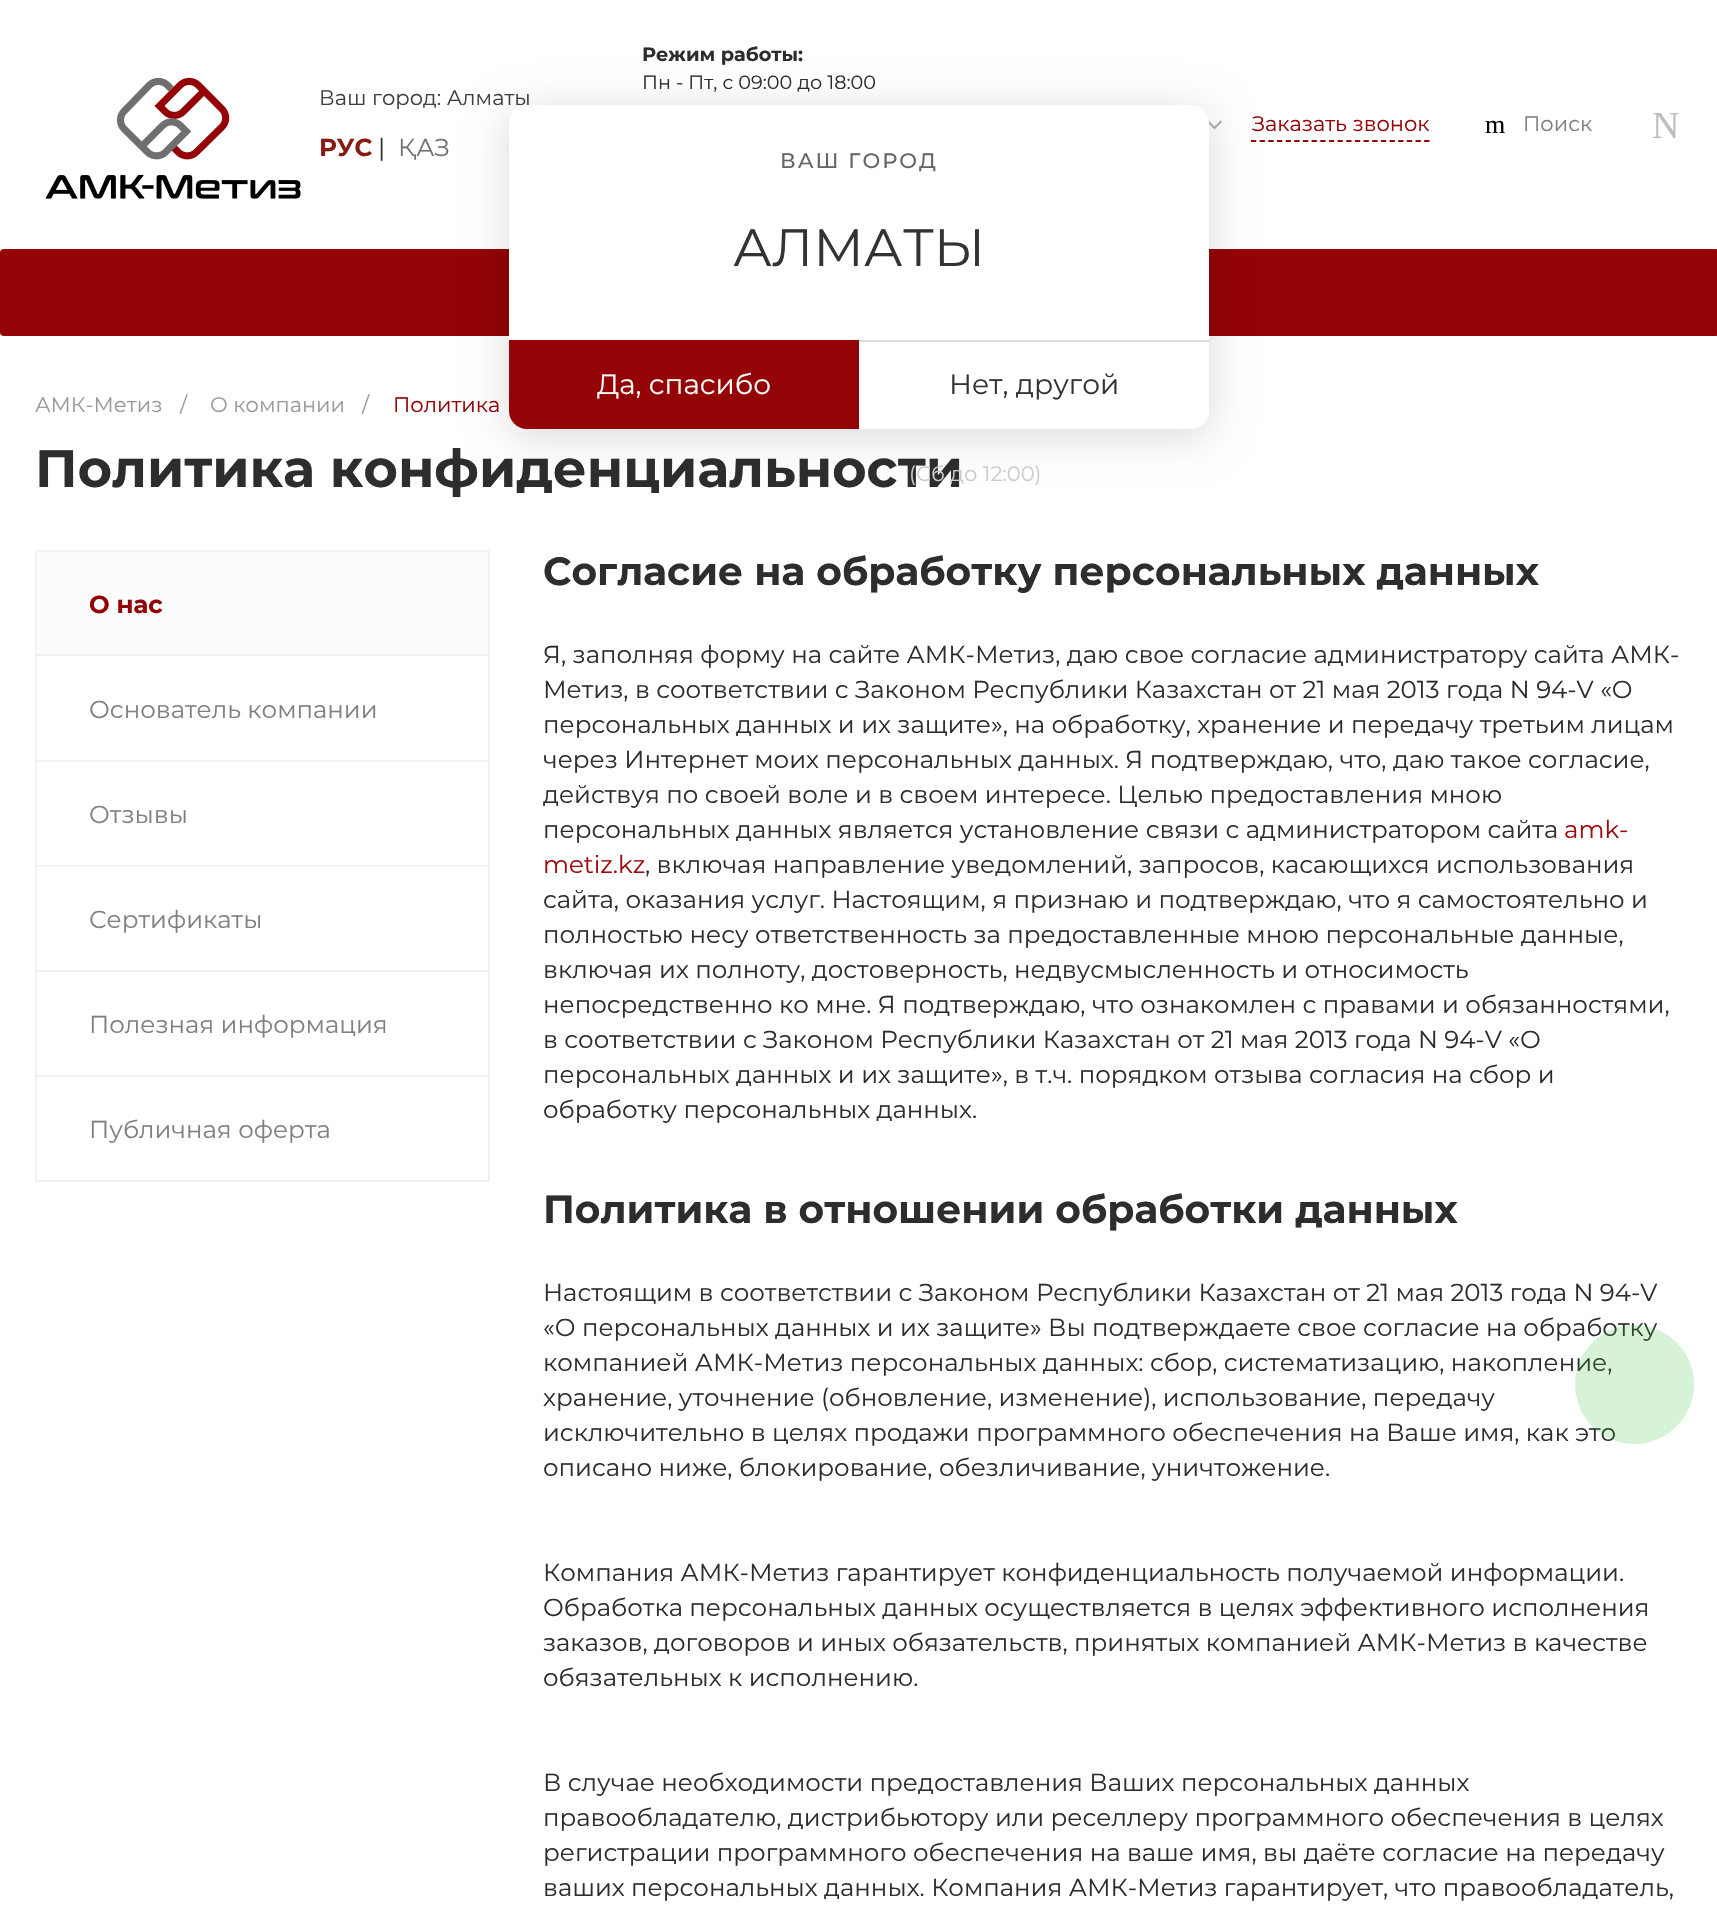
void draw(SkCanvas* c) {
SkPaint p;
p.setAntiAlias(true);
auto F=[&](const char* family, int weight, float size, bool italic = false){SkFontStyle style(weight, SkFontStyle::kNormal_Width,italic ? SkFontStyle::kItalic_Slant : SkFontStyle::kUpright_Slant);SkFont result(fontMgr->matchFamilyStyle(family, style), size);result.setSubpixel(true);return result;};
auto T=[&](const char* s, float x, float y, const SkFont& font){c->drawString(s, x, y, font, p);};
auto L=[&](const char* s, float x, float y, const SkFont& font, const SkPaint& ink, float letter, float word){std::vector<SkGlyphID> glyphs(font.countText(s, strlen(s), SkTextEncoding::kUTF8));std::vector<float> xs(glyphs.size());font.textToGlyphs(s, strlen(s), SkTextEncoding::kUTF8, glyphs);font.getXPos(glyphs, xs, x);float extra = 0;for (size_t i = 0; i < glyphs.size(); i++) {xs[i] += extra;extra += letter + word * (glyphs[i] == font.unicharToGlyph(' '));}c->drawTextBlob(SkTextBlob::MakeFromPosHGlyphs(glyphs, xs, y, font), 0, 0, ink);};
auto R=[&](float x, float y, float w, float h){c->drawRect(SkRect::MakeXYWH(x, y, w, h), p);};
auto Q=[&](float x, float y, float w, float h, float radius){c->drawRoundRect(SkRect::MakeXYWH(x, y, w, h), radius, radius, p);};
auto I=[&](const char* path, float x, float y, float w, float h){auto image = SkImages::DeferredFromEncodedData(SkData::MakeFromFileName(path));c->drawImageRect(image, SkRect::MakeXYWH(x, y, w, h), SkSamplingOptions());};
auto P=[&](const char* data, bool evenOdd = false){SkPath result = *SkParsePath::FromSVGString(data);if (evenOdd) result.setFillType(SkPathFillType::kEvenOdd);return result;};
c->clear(0xffffffff);
auto f1 = F("Montserrat",400,21);
p.setColor(0xff9a9a9a);
T("АМК-Метиз",35,412,f1);
T("/",180,412,f1);
T("О компании",210,412,f1);
T("/",362,412,f1);
p.setColor(0xff940305);
T("Политика",393,412,f1);
auto f2 = F("Montserrat",700,19.25);
p.setColor(0xff2d2d2d);
T("Режим работы:",642,61,f2);
auto f3 = F("Montserrat",400,19.25);
T("Пн - Пт, с 09:00 до 18:00",642,89,f3);
I("1.png",45,77,256,122);
p.setColor(0xff404040);
T("Ваш город: Алматы",319,105,f1);
p.setStroke(true);
p.setStrokeWidth(1.8);
p.setColor(0xff940305);
p.setPathEffect(SkDashPathEffect::Make({{5.25f,3.41f}}, 0));
c->drawPath(P("M1251 141h179"),p);
p.setPathEffect(nullptr);
p.setStrokeWidth(2.1);
p.setColor(0xffb0b0b0);
c->drawPath(P("M1207.5 121l7 7l7-7"),p);
p.setStroke(false);
p.setColor(0xff940305);
Q(0,249,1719,87,4);
p.setColor(0x26000000);
p.setMaskFilter(SkMaskFilter::MakeBlur(kNormal_SkBlurStyle, 22));
c->drawRoundRect(SkRect::MakeXYWH(509,112,700,324),18,18,p);
p.setMaskFilter(nullptr);
p.setColor(0xffffffff);
Q(509,105,700,324,18);
auto f4 = F("Montserrat",500,21);
p.setColor(0xff666666);
L("ВАШ ГОРОД",780,168,f4,p,2,0);
auto f5 = F("Montserrat",400,52.5);
p.setColor(0xff333333);
T("АЛМАТЫ",733,266,f5);
p.setColor(0xffdcdcdc);
R(859,340,350,2);
p.setColor(0xff940305);
c->drawPath(P("M509 340h350v89h-332c-10 0-18-8-18-18z"),p);
auto f6 = F("Montserrat",400,28);
p.setColor(0xffffffff);
T("Да, спасибо",597,394,f6);
p.setColor(0xff333333);
T("Нет, другой",949,394,f6);
auto f7 = F("Montserrat",700,24.5);
p.setColor(0xff871b13);
T("РУС",319,156,f7);
auto f8 = F("Montserrat",400,24.5);
p.setColor(0xff2d2d2d);
T("|",378,156,f8);
p.setColor(0xff727272);
T("ҚАЗ",398,156,f8);
p.setColor(0xff940305);
T("Заказать звонок",1252,131,f1);
c->save();
c->clipRect(SkRect::MakeXYWH(0,439,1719,58));
auto f9 = F("Montserrat",700,52.5);
p.setColor(0xff2d2d2d);
T("Политика конфиденциальности",35,487,f9);
c->restore();
p.setColor(0xffcccccc);
T("(Сб до 12:00)",909,481,f1);
auto f10 = F("Liberation Serif",400,26);
p.setColor(0xff000000);
T("m",1485,133,f10);
p.setColor(0xff808080);
T("Поиск",1523,131,f1);
auto f11 = F("Liberation Serif",400,38);
p.setColor(0xffbebebf);
T("N",1652,138,f11);
p.setColor(0xfffbfcfd);
c->drawRect(SkRect::MakeXYWH(36,551,453,104),p);
p.setStroke(true);
p.setStrokeWidth(2);
p.setColor(0xfff2f2f2);
c->drawRect(SkRect::MakeXYWH(36,551,453,104),p);
p.setStroke(false);
p.setColor(0xff940305);
T("О нас",89,613,f7);
p.setColor(0xfff2f2f2);
R(488,656,2,105);
R(35,760,455,2);
R(35,656,2,105);
p.setColor(0xff808080);
T("Основатель компании",89,718,f8);
p.setColor(0xfff2f2f2);
R(488,761,2,105);
R(35,865,455,2);
R(35,761,2,105);
p.setColor(0xff808080);
T("Отзывы",89,823,f8);
p.setColor(0xfff2f2f2);
R(488,866,2,105);
R(35,970,455,2);
R(35,866,2,105);
p.setColor(0xff808080);
T("Сертификаты",89,928,f8);
p.setColor(0xfff2f2f2);
R(488,971,2,105);
R(35,1075,455,2);
R(35,971,2,105);
p.setColor(0xff808080);
T("Полезная информация",89,1033,f8);
p.setColor(0xfff2f2f2);
R(488,1076,2,105);
R(35,1180,455,2);
R(35,1076,2,105);
p.setColor(0xff808080);
T("Публичная оферта",89,1138,f8);
auto f12 = F("Montserrat",700,39.2);
p.setColor(0xff2d2d2d);
T("Согласие на обработку персональных данных",543,585,f12);
T("Я, заполняя форму на сайте АМК-Метиз, даю свое согласие администратору сайта АМК-",543,663,f8);
T("Метиз, в соответствии с Законом Республики Казахстан от 21 мая 2013 года N 94-V «О",543,698,f8);
T("персональных данных и их защите», на обработку, хранение и передачу третьим лицам",543,733,f8);
T("через Интернет моих персональных данных. Я подтверждаю, что, даю такое согласие,",543,768,f8);
T("действуя по своей воле и в своем интересе. Целью предоставления мною",543,803,f8);
T("персональных данных является установление связи с администратором сайта",543,838,f8);
p.setColor(0xff9d0a0f);
T("amk-",1564,838,f8);
T("metiz.kz",543,873,f8);
p.setColor(0xff2d2d2d);
T(", включая направление уведомлений, запросов, касающихся использования",645,873,f8);
T("сайта, оказания услуг. Настоящим, я признаю и подтверждаю, что я самостоятельно и",543,908,f8);
T("полностью несу ответственность за предоставленные мною персональные данные,",543,943,f8);
T("включая их полноту, достоверность, недвусмысленность и относимость",543,978,f8);
T("непосредственно ко мне. Я подтверждаю, что ознакомлен с правами и обязанностями,",543,1013,f8);
T("в соответствии с Законом Республики Казахстан от 21 мая 2013 года N 94-V «О",543,1048,f8);
T("персональных данных и их защите», в т.ч. порядком отзыва согласия на сбор и",543,1083,f8);
T("обработку персональных данных.",543,1118,f8);
T("Политика в отношении обработки данных",543,1223,f12);
T("Настоящим в соответствии с Законом Республики Казахстан от 21 мая 2013 года N 94-V",543,1301,f8);
T("«О персональных данных и их защите» Вы подтверждаете свое согласие на обработку",543,1336,f8);
T("компанией АМК-Метиз персональных данных: сбор, систематизацию, накопление,",543,1371,f8);
T("хранение, уточнение (обновление, изменение), использование, передачу",543,1406,f8);
T("исключительно в целях продажи программного обеспечения на Ваше имя, как это",543,1441,f8);
T("описано ниже, блокирование, обезличивание, уничтожение.",543,1476,f8);
T("Компания АМК-Метиз гарантирует конфиденциальность получаемой информации.",543,1581,f8);
T("Обработка персональных данных осуществляется в целях эффективного исполнения",543,1616,f8);
T("заказов, договоров и иных обязательств, принятых компанией АМК-Метиз в качестве",543,1651,f8);
T("обязательных к исполнению.",543,1686,f8);
T("В случае необходимости предоставления Ваших персональных данных",543,1791,f8);
T("правообладателю, дистрибьютору или реселлеру программного обеспечения в целях",543,1826,f8);
T("регистрации программного обеспечения на ваше имя, вы даёте согласие на передачу",543,1861,f8);
T("ваших персональных данных. Компания АМК-Метиз гарантирует, что правообладатель,",543,1896,f8);
p.setColor(0x3330bf39);
c->drawCircle(1634.5,1384.5,59.5,p);
}
